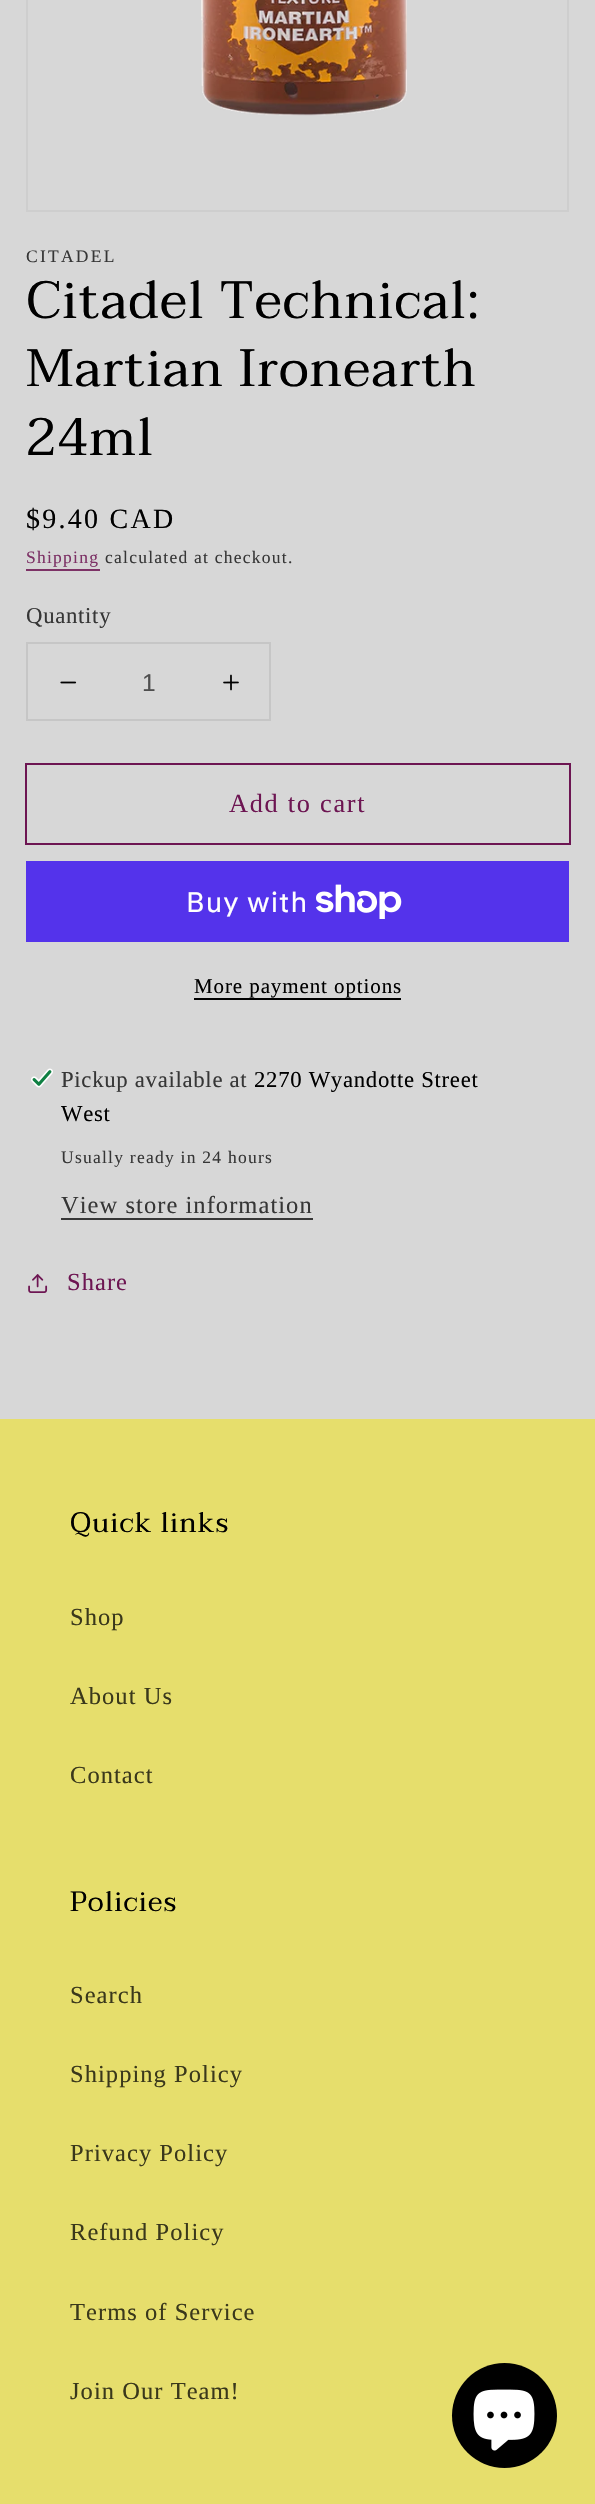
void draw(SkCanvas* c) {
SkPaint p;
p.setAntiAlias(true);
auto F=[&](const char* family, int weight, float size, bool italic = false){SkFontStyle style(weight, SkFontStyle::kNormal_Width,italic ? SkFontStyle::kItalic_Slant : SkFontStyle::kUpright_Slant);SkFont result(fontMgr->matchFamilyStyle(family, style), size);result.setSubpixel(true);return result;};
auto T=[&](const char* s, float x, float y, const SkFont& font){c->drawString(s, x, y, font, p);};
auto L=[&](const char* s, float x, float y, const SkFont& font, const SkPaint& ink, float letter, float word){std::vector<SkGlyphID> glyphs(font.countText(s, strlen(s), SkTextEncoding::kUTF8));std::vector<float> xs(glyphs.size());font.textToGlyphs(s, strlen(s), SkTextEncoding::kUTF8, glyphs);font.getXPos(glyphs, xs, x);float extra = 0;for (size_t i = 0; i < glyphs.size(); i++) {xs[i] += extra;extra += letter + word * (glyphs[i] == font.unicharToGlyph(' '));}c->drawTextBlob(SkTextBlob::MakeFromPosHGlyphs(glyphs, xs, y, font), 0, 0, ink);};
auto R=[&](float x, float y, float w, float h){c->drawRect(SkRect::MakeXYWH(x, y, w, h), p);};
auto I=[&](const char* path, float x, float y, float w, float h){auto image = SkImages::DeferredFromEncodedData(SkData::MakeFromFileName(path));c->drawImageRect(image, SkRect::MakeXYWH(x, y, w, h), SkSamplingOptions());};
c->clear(0xffd7d7d7);
p.setStroke(true);
p.setStrokeWidth(2);
p.setColor(0xffcecece);
c->drawRect(SkRect::MakeXYWH(27,-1,541,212),p);
I("1.png",201,0,206,116);
auto f1 = F("Liberation Serif",400,17.5);
p.setStroke(false);
p.setColor(0xff363636);
L("CITADEL",26,262,f1,p,2.25,0);
auto f2 = F("Taviraj",400,52.5);
p.setColor(0xff000000);
L("Citadel Technical:",26,318,f2,p,1.05,0);
L("Martian Ironearth",26,386,f2,p,1.05,0);
L("24ml",26,455,f2,p,1.05,0);
auto f3 = F("Liberation Serif",400,28);
L("$9.40 CAD",26,528,f3,p,2.25,0);
p.setColor(0xff7d3266);
L("Shipping",26,563,f1,p,1.25,0);
R(26,569,74,2);
p.setColor(0xff363636);
L("calculated at checkout.",105,563,f1,p,1.25,0);
auto f4 = F("Liberation Serif",400,22.75);
L("Quantity",26,623,f4,p,.7,0);
p.setStroke(true);
p.setColor(0xffc6c6c6);
c->drawRect(SkRect::MakeXYWH(27,643,243,77),p);
I("2.png",60,681,17,3);
auto f5 = F("Liberation Sans",400,24.5);
p.setStroke(false);
p.setColor(0xff4e4e4e);
T("1",142,691,f5);
I("3.png",223,674,16,17);
p.setStroke(true);
p.setColor(0xff6d1552);
c->drawRect(SkRect::MakeXYWH(26,764,544,80),p);
auto f6 = F("Liberation Serif",400,26.25);
p.setStroke(false);
L("Add to cart",229,812,f6,p,1.75,0);
p.setColor(0xff5433eb);
R(26,861,543,81);
auto f7 = F("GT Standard",400,28);
p.setColor(0xffffffff);
L("Buy with",186,912,f7,p,1.05,0);
I("4.png",316,884,86,35);
auto f8 = F("Liberation Serif",400,21);
p.setColor(0xff000000);
L("More payment options",194,993,f8,p,.9,0);
R(194,998,207,2);
I("5.png",31,1068,22,20);
p.setColor(0xff363636);
L("Pickup available at",61,1087,f4,p,.7,0);
p.setColor(0xff000000);
L("2270 Wyandotte Street",254,1087,f4,p,.7,0);
L("West",61,1121,f4,p,.7,0);
p.setColor(0xff363636);
L("Usually ready in 24 hours",61,1163,f1,p,1.25,0);
auto f9 = F("Liberation Serif",400,24.5);
L("View store information",61,1213,f9,p,1.05,0);
R(61,1218,252,2);
I("6.png",28,1274,20,19);
p.setColor(0xff6d1552);
L("Share",67,1290,f9,p,1.05,0);
p.setColor(0xffe6de6c);
R(0,1419,595,1085);
auto f10 = F("Taviraj",400,28);
p.setColor(0xff000000);
L("Quick links",70,1532,f10,p,1.05,0);
p.setColor(0xff3a381b);
L("Shop",70,1625,f9,p,1.05,0);
L("About Us",70,1704,f9,p,1.05,0);
L("Contact",70,1783,f9,p,1.05,0);
p.setColor(0xff000000);
L("Policies",70,1911,f10,p,1.05,0);
p.setColor(0xff3a381b);
L("Search",70,2003,f9,p,1.05,0);
L("Shipping Policy",70,2082,f9,p,1.05,0);
L("Privacy Policy",70,2161,f9,p,1.05,0);
L("Refund Policy",70,2240,f9,p,1.05,0);
L("Terms of Service",70,2320,f9,p,1.05,0);
L("Join Our Team!",70,2399,f9,p,1.05,0);
p.setColor(0xff000000);
c->drawCircle(504.5,2415.5,52.5,p);
I("7.png",473,2389,62,62);
}
